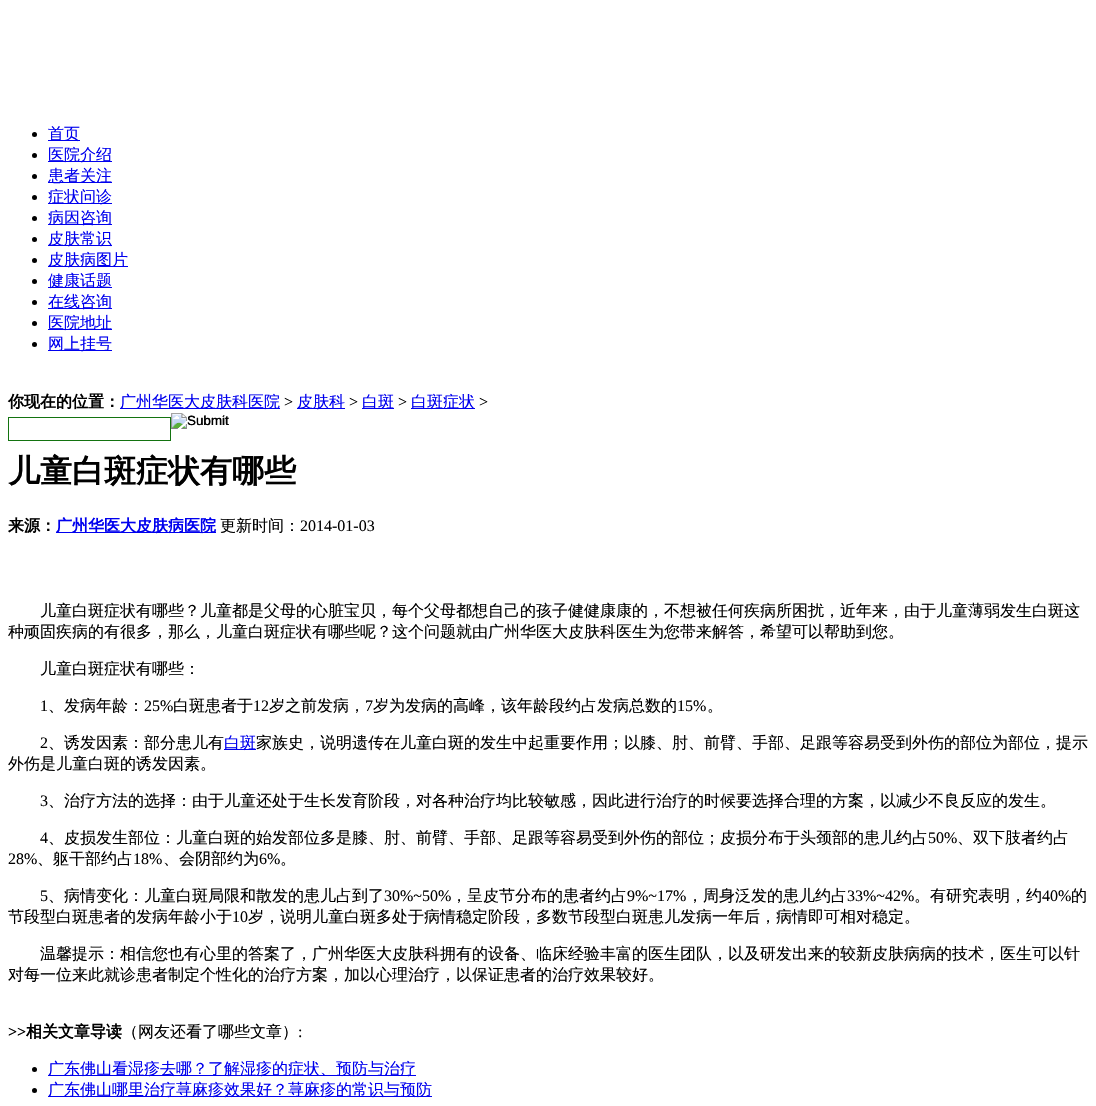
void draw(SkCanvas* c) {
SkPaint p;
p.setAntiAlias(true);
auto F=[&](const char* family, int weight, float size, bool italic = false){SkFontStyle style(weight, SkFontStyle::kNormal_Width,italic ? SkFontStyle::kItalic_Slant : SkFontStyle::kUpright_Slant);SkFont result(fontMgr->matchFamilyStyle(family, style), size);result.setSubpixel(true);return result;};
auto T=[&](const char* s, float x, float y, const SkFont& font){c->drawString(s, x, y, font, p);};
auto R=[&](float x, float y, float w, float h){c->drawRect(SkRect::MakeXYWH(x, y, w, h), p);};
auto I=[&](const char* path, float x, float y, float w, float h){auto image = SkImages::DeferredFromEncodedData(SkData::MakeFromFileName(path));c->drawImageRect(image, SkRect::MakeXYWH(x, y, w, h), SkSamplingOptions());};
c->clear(0xffffffff);
p.setColor(0xff000000);
c->drawCircle(34.5,134.5,2.5,p);
p.setColor(0xff0000ee);
R(48,140,32,1);
auto f1 = F("WenQuanYi Zen Hei",500,16);
T("首页",48,139,f1);
p.setColor(0xff000000);
c->drawCircle(34.5,155.5,2.5,p);
p.setColor(0xff0000ee);
R(48,161,64,1);
T("医院介绍",48,160,f1);
p.setColor(0xff000000);
c->drawCircle(34.5,176.5,2.5,p);
p.setColor(0xff0000ee);
R(48,182,64,1);
T("患者关注",48,181,f1);
p.setColor(0xff000000);
c->drawCircle(34.5,197.5,2.5,p);
p.setColor(0xff0000ee);
R(48,203,64,1);
T("症状问诊",48,202,f1);
p.setColor(0xff000000);
c->drawCircle(34.5,218.5,2.5,p);
p.setColor(0xff0000ee);
R(48,224,64,1);
T("病因咨询",48,223,f1);
p.setColor(0xff000000);
c->drawCircle(34.5,239.5,2.5,p);
p.setColor(0xff0000ee);
R(48,245,64,1);
T("皮肤常识",48,244,f1);
p.setColor(0xff000000);
c->drawCircle(34.5,260.5,2.5,p);
p.setColor(0xff0000ee);
R(48,266,80,1);
T("皮肤病图片",48,265,f1);
p.setColor(0xff000000);
c->drawCircle(34.5,281.5,2.5,p);
p.setColor(0xff0000ee);
R(48,287,64,1);
T("健康话题",48,286,f1);
p.setColor(0xff000000);
c->drawCircle(34.5,302.5,2.5,p);
p.setColor(0xff0000ee);
R(48,308,64,1);
T("在线咨询",48,307,f1);
p.setColor(0xff000000);
c->drawCircle(34.5,323.5,2.5,p);
p.setColor(0xff0000ee);
R(48,329,64,1);
T("医院地址",48,328,f1);
p.setColor(0xff000000);
c->drawCircle(34.5,344.5,2.5,p);
p.setColor(0xff0000ee);
R(48,350,64,1);
T("网上挂号",48,349,f1);
auto f2 = F("WenQuanYi Zen Hei",700,16);
p.setColor(0xff000000);
T("你现在的位置：",8,407,f2);
p.setColor(0xff0000ee);
R(120,408,160,1);
T("广州华医大皮肤科医院",120,407,f1);
auto f3 = F("Liberation Serif",400,16);
p.setColor(0xff000000);
T(">",284,407,f3);
p.setColor(0xff0000ee);
R(297,408,48,1);
T("皮肤科",297,407,f1);
p.setColor(0xff000000);
T(">",349,407,f3);
p.setColor(0xff0000ee);
R(362,408,32,1);
T("白斑",362,407,f1);
p.setColor(0xff000000);
T(">",398,407,f3);
p.setColor(0xff0000ee);
R(411,408,64,1);
T("白斑症状",411,407,f1);
p.setColor(0xff000000);
T(">",479,407,f3);
p.setStroke(true);
p.setStrokeWidth(1);
p.setColor(0xff137310);
c->drawRect(SkRect::MakeXYWH(8.5,417.5,162,23),p);
I("1.png",171,413,57,16);
auto f4 = F("Liberation Sans",400,13.5);
p.setStroke(false);
p.setColor(0xff000000);
T("Submit",187,425,f4);
auto f5 = F("WenQuanYi Zen Hei",700,32);
T("儿童白斑症状有哪些",8,482,f5);
T("来源：",8,531,f2);
p.setColor(0xff0000ee);
R(56,532,160,1);
T("广州华医大皮肤病医院",56,531,f2);
p.setColor(0xff000000);
T("更新时间：",220,531,f1);
T("2014-01-03",300,531,f3);
T("儿童白斑症状有哪些？儿童都是父母的心脏宝贝，每个父母都想自己的孩子健健康康的，不想被任何疾病所困扰，近年来，由于儿童薄弱发生白斑这",40,616,f1);
T("种顽固疾病的有很多，那么，儿童白斑症状有哪些呢？这个问题就由广州华医大皮肤科医生为您带来解答，希望可以帮助到您。",8,637,f1);
T("儿童白斑症状有哪些：",40,674,f1);
T("1",40,711,f3);
T("、发病年龄：",48,711,f1);
T("25%",144,711,f3);
T("白斑患者于",173,711,f1);
T("12",253,711,f3);
T("岁之前发病，",269,711,f1);
T("7",365,711,f3);
T("岁为发病的高峰，该年龄段约占发病总数的",373,711,f1);
T("15%",677,711,f3);
T("。",707,711,f1);
T("2",40,748,f3);
T("、诱发因素：部分患儿有",48,748,f1);
p.setColor(0xff0000ee);
R(224,749,32,1);
T("白斑",224,748,f1);
p.setColor(0xff000000);
T("家族史，说明遗传在儿童白斑的发生中起重要作用；以膝、肘、前臂、手部、足跟等容易受到外伤的部位为部位，提示",256,748,f1);
T("外伤是儿童白斑的诱发因素。",8,769,f1);
T("3",40,806,f3);
T("、治疗方法的选择：由于儿童还处于生长发育阶段，对各种治疗均比较敏感，因此进行治疗的时候要选择合理的方案，以减少不良反应的发生。",48,806,f1);
T("4",40,843,f3);
T("、皮损发生部位：儿童白斑的始发部位多是膝、肘、前臂、手部、足跟等容易受到外伤的部位；皮损分布于头颈部的患儿约占",48,843,f1);
T("50%",928,843,f3);
T("、双下肢者约占",957,843,f1);
T("28%",8,864,f3);
T("、躯干部约占",37,864,f1);
T("18%",133,864,f3);
T("、会阴部约为",163,864,f1);
T("6%",259,864,f3);
T("。",280,864,f1);
T("5",40,901,f3);
T("、病情变化：儿童白斑局限和散发的患儿占到了",48,901,f1);
T("30%~50%",384,901,f3);
T("，呈皮节分布的患者约占",451,901,f1);
T("9%~17%",627,901,f3);
T("，周身泛发的患儿约占",687,901,f1);
T("33%~42%",847,901,f3);
T("。有研究表明，约",914,901,f1);
T("40%",1042,901,f3);
T("的",1071,901,f1);
T("节段型白斑患者的发病年龄小于",8,922,f1);
T("10",232,922,f3);
T("岁，说明儿童白斑多处于病情稳定阶段，多数节段型白斑患儿发病一年后，病情即可相对稳定。",248,922,f1);
T("温馨提示：相信您也有心里的答案了，广州华医大皮肤科拥有的设备、临床经验丰富的医生团队，以及研发出来的较新皮肤病病的技术，医生可以针",40,959,f1);
T("对每一位来此就诊患者制定个性化的治疗方案，加以心理治疗，以保证患者的治疗效果较好。",8,980,f1);
auto f6 = F("Liberation Serif",700,16);
T(">>",8,1037,f6);
T("相关文章导读",26,1037,f2);
T("（网友还看了哪些文章）",122,1037,f1);
T(":",298,1037,f3);
c->drawCircle(34.5,1069.5,2.5,p);
p.setColor(0xff0000ee);
R(48,1075,368,1);
T("广东佛山看湿疹去哪？了解湿疹的症状、预防与治疗",48,1074,f1);
p.setColor(0xff000000);
c->drawCircle(34.5,1090.5,2.5,p);
p.setColor(0xff0000ee);
R(48,1096,384,1);
T("广东佛山哪里治疗荨麻疹效果好？荨麻疹的常识与预防",48,1095,f1);
}
